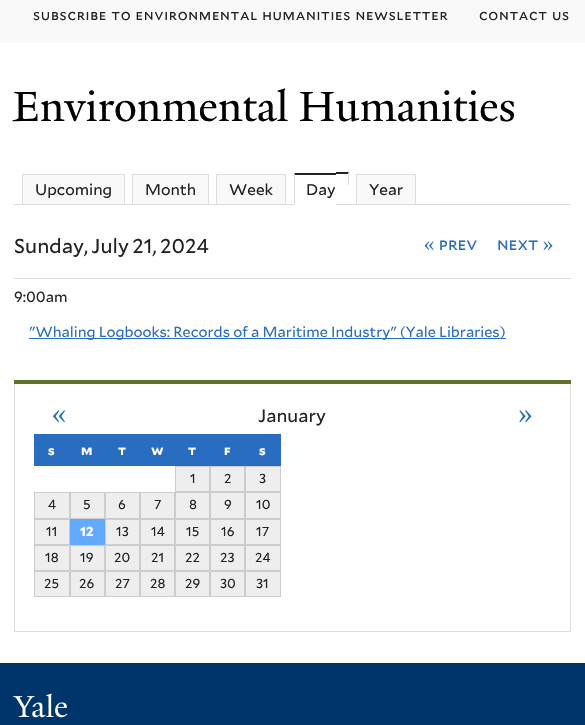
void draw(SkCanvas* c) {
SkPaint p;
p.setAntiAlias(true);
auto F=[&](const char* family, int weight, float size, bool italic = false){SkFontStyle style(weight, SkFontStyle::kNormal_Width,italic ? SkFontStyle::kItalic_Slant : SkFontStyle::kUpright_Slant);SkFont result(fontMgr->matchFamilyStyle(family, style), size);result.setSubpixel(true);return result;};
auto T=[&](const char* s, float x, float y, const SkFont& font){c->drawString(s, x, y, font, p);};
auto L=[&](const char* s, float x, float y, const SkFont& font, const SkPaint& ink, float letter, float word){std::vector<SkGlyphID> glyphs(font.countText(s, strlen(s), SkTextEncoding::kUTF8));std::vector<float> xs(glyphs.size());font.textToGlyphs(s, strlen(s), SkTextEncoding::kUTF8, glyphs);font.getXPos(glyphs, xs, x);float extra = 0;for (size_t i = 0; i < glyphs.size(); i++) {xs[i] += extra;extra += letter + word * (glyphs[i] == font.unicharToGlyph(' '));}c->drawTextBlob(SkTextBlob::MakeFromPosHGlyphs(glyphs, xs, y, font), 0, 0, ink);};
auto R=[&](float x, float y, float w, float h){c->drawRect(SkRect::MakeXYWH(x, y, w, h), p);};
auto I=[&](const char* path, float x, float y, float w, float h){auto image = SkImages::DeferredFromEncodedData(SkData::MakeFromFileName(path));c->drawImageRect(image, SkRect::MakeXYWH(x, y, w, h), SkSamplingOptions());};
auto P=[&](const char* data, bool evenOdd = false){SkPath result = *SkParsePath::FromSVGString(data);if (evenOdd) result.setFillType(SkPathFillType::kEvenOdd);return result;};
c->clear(0xffffffff);
p.setColor(0xfff9f9f9);
R(0,0,585,43);
auto f1 = F("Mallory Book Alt",400,14.35);
p.setColor(0xff222222);
L("subscribe to environmental humanities newsletter",33,20,f1,p,.7,.5);
L("contact us",479,20,f1,p,.7,.5);
auto f2 = F("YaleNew",400,45.75);
p.setColor(0xff000000);
T("Environmental Humanities",13,121,f2);
p.setColor(0xffdddddd);
R(14,204,557,1);
p.setColor(0xfff9f9f9);
R(23,175,101,29);
auto f3 = F("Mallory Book",400,15.5);
p.setColor(0xff222222);
T("Upcoming",35,195,f3);
p.setColor(0xffdddddd);
R(22,174,103,1);
R(124,174,1,30);
R(22,174,1,30);
p.setColor(0xfff9f9f9);
R(133,175,75,29);
p.setColor(0xff222222);
T("Month",145,195,f3);
p.setColor(0xffdddddd);
R(132,174,77,1);
R(208,174,1,30);
R(132,174,1,30);
p.setColor(0xfff9f9f9);
R(217,175,68,29);
p.setColor(0xff222222);
T("Week",229,195,f3);
p.setColor(0xffdddddd);
R(216,174,70,1);
R(285,174,1,30);
R(216,174,1,30);
p.setColor(0xff222222);
T("Day",306,195,f3);
c->drawPath(P("M294 173h42v2h-41z"),p);
p.setColor(0xffffffff);
R(294,204,42,1);
p.setColor(0xffdddddd);
c->drawPath(P("M294 205v-32l1 2v29z"),p);
p.setColor(0xff222222);
c->drawPath(P("M336 172h13l-1 2h-12z"),p);
p.setColor(0xffdddddd);
c->drawPath(P("M349 172v14l-1-1v-11z"),p);
p.setColor(0xffffffff);
R(348,185,1,1);
p.setColor(0xfff9f9f9);
R(357,175,58,29);
p.setColor(0xff222222);
T("Year",369,195,f3);
p.setColor(0xffdddddd);
R(356,174,60,1);
R(415,174,1,30);
R(356,174,1,30);
auto f4 = F("Mallory Book",400,20);
p.setColor(0xff222222);
L("Sunday, July 21, 2024",14,253,f4,p,0,-1);
auto f5 = F("Mallory Book Alt",400,17);
p.setColor(0xff286dc0);
L("« prev",424,250,f5,p,0,.5);
L("next »",497,250,f5,p,0,.5);
p.setColor(0xffdddddd);
R(14,278,557,1);
auto f6 = F("Mallory Book",400,14.6);
p.setColor(0xff222222);
T("9:00am",14,302,f6);
p.setColor(0xff286dc0);
R(29,338,477,1);
T("\"Whaling Logbooks: Records of a Maritime Industry\" (Yale Libraries)",29,337,f6);
p.setColor(0xff5f712d);
R(14,380,557,4);
p.setColor(0xffdddddd);
R(570,384,1,248);
R(14,631,557,1);
R(14,384,1,248);
auto f7 = F("Mallory Book",400,18);
p.setColor(0xff222222);
T("January",258,422,f7);
auto f8 = F("Mallory Book",400,23);
p.setColor(0xff286dc0);
T("«",52,422,f8);
T("»",518,422,f8);
R(34,434,247,32);
auto f9 = F("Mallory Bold",700,13);
p.setColor(0xffffffff);
L("s",48,455,f9,p,1,0);
auto f10 = F("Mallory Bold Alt",700,13);
L("m",81,455,f10,p,1,0);
L("t",118,455,f10,p,1,0);
L("w",151,455,f10,p,1,0);
L("t",188,455,f10,p,1,0);
L("f",224,455,f10,p,1,0);
L("s",259,455,f9,p,1,0);
p.setColor(0xffeeeeee);
R(176,467,33,24);
p.setColor(0xffcccccc);
R(175,466,1,26);
R(175,491,35,1);
R(209,466,2,26);
R(175,466,35,1);
auto f11 = F("Mallory Book",400,13);
p.setColor(0xff222222);
T("1",190,483,f11);
p.setColor(0xffeeeeee);
R(211,467,33,24);
p.setColor(0xffcccccc);
R(210,491,35,1);
R(244,466,2,26);
R(210,466,35,1);
p.setColor(0xff222222);
T("2",224,483,f11);
p.setColor(0xffeeeeee);
R(246,467,34,24);
p.setColor(0xffcccccc);
R(245,491,36,1);
R(280,466,1,26);
R(245,466,36,1);
p.setColor(0xff222222);
T("3",259,483,f11);
p.setColor(0xffeeeeee);
R(35,493,34,25);
p.setColor(0xffcccccc);
R(34,492,1,105);
R(34,518,36,1);
R(69,492,2,27);
R(34,492,36,1);
p.setColor(0xff222222);
T("4",48,509,f11);
p.setColor(0xffeeeeee);
R(71,493,33,25);
p.setColor(0xffcccccc);
R(70,518,35,1);
R(104,492,2,27);
R(70,492,35,1);
p.setColor(0xff222222);
T("5",83,509,f11);
p.setColor(0xffeeeeee);
R(106,493,33,25);
p.setColor(0xffcccccc);
R(105,518,35,1);
R(139,492,2,27);
R(105,492,35,1);
p.setColor(0xff222222);
T("6",118,509,f11);
p.setColor(0xffeeeeee);
R(141,493,33,25);
p.setColor(0xffcccccc);
R(140,518,35,1);
R(174,492,2,27);
R(140,492,35,1);
p.setColor(0xff222222);
T("7",154,509,f11);
p.setColor(0xffeeeeee);
R(176,493,33,25);
p.setColor(0xffcccccc);
R(175,518,35,1);
R(209,492,2,27);
R(175,492,35,1);
p.setColor(0xff222222);
T("8",189,509,f11);
p.setColor(0xffeeeeee);
R(211,493,33,25);
p.setColor(0xffcccccc);
R(210,518,35,1);
R(244,492,2,27);
R(210,492,35,1);
p.setColor(0xff222222);
T("9",224,509,f11);
p.setColor(0xffeeeeee);
R(246,493,34,25);
p.setColor(0xffcccccc);
R(245,518,36,1);
R(280,492,1,27);
R(245,492,36,1);
p.setColor(0xff222222);
T("10",256,509,f11);
p.setColor(0xffeeeeee);
R(35,520,34,24);
p.setColor(0xffcccccc);
R(34,544,36,1);
R(69,519,1,26);
R(34,519,36,1);
p.setColor(0xff222222);
T("11",46,536,f11);
p.setColor(0xff63aaff);
R(70,519,35,26);
p.setColor(0xffffffff);
T("12",80,536,f9);
p.setColor(0xffeeeeee);
R(106,520,33,24);
p.setColor(0xffcccccc);
R(105,519,1,26);
R(105,544,35,1);
R(139,519,2,26);
R(105,519,35,1);
p.setColor(0xff222222);
T("13",116,536,f11);
p.setColor(0xffeeeeee);
R(141,520,33,24);
p.setColor(0xffcccccc);
R(140,544,35,1);
R(174,519,2,26);
R(140,519,35,1);
p.setColor(0xff222222);
T("14",151,536,f11);
p.setColor(0xffeeeeee);
R(176,520,33,24);
p.setColor(0xffcccccc);
R(175,544,35,1);
R(209,519,2,26);
R(175,519,35,1);
p.setColor(0xff222222);
T("15",186,536,f11);
p.setColor(0xffeeeeee);
R(211,520,33,24);
p.setColor(0xffcccccc);
R(210,544,35,1);
R(244,519,2,26);
R(210,519,35,1);
p.setColor(0xff222222);
T("16",221,536,f11);
p.setColor(0xffeeeeee);
R(246,520,34,24);
p.setColor(0xffcccccc);
R(245,544,36,1);
R(280,519,1,26);
R(245,519,36,1);
p.setColor(0xff222222);
T("17",256,536,f11);
p.setColor(0xffeeeeee);
R(35,546,34,24);
p.setColor(0xffcccccc);
R(34,570,36,1);
R(69,545,2,26);
R(34,545,36,1);
p.setColor(0xff222222);
T("18",45,562,f11);
p.setColor(0xffeeeeee);
R(71,546,33,24);
p.setColor(0xffcccccc);
R(70,570,35,1);
R(104,545,2,26);
R(70,545,35,1);
p.setColor(0xff222222);
T("19",80,562,f11);
p.setColor(0xffeeeeee);
R(106,546,33,24);
p.setColor(0xffcccccc);
R(105,570,35,1);
R(139,545,2,26);
R(105,545,35,1);
p.setColor(0xff222222);
T("20",114,562,f11);
p.setColor(0xffeeeeee);
R(141,546,33,24);
p.setColor(0xffcccccc);
R(140,570,35,1);
R(174,545,2,26);
R(140,545,35,1);
p.setColor(0xff222222);
T("21",151,562,f11);
p.setColor(0xffeeeeee);
R(176,546,33,24);
p.setColor(0xffcccccc);
R(175,570,35,1);
R(209,545,2,26);
R(175,545,35,1);
p.setColor(0xff222222);
T("22",185,562,f11);
p.setColor(0xffeeeeee);
R(211,546,33,24);
p.setColor(0xffcccccc);
R(210,570,35,1);
R(244,545,2,26);
R(210,545,35,1);
p.setColor(0xff222222);
T("23",220,562,f11);
p.setColor(0xffeeeeee);
R(246,546,34,24);
p.setColor(0xffcccccc);
R(245,570,36,1);
R(280,545,1,26);
R(245,545,36,1);
p.setColor(0xff222222);
T("24",255,562,f11);
p.setColor(0xffeeeeee);
R(35,572,34,24);
p.setColor(0xffcccccc);
R(34,596,36,1);
R(69,571,2,26);
R(34,571,36,1);
p.setColor(0xff222222);
T("25",44,588,f11);
p.setColor(0xffeeeeee);
R(71,572,33,24);
p.setColor(0xffcccccc);
R(70,596,35,1);
R(104,571,2,26);
R(70,571,35,1);
p.setColor(0xff222222);
T("26",79,588,f11);
p.setColor(0xffeeeeee);
R(106,572,33,24);
p.setColor(0xffcccccc);
R(105,596,35,1);
R(139,571,2,26);
R(105,571,35,1);
p.setColor(0xff222222);
T("27",115,588,f11);
p.setColor(0xffeeeeee);
R(141,572,33,24);
p.setColor(0xffcccccc);
R(140,596,35,1);
R(174,571,2,26);
R(140,571,35,1);
p.setColor(0xff222222);
T("28",150,588,f11);
p.setColor(0xffeeeeee);
R(176,572,33,24);
p.setColor(0xffcccccc);
R(175,596,35,1);
R(209,571,2,26);
R(175,571,35,1);
p.setColor(0xff222222);
T("29",185,588,f11);
p.setColor(0xffeeeeee);
R(211,572,33,24);
p.setColor(0xffcccccc);
R(210,596,35,1);
R(244,571,2,26);
R(210,571,35,1);
p.setColor(0xff222222);
T("30",220,588,f11);
p.setColor(0xffeeeeee);
R(246,572,34,24);
p.setColor(0xffcccccc);
R(245,596,36,1);
R(280,571,1,26);
R(245,571,36,1);
p.setColor(0xff222222);
T("31",256,588,f11);
p.setColor(0xff00356b);
R(0,663,585,62);
I("1.png",13,693,55,25);
}
